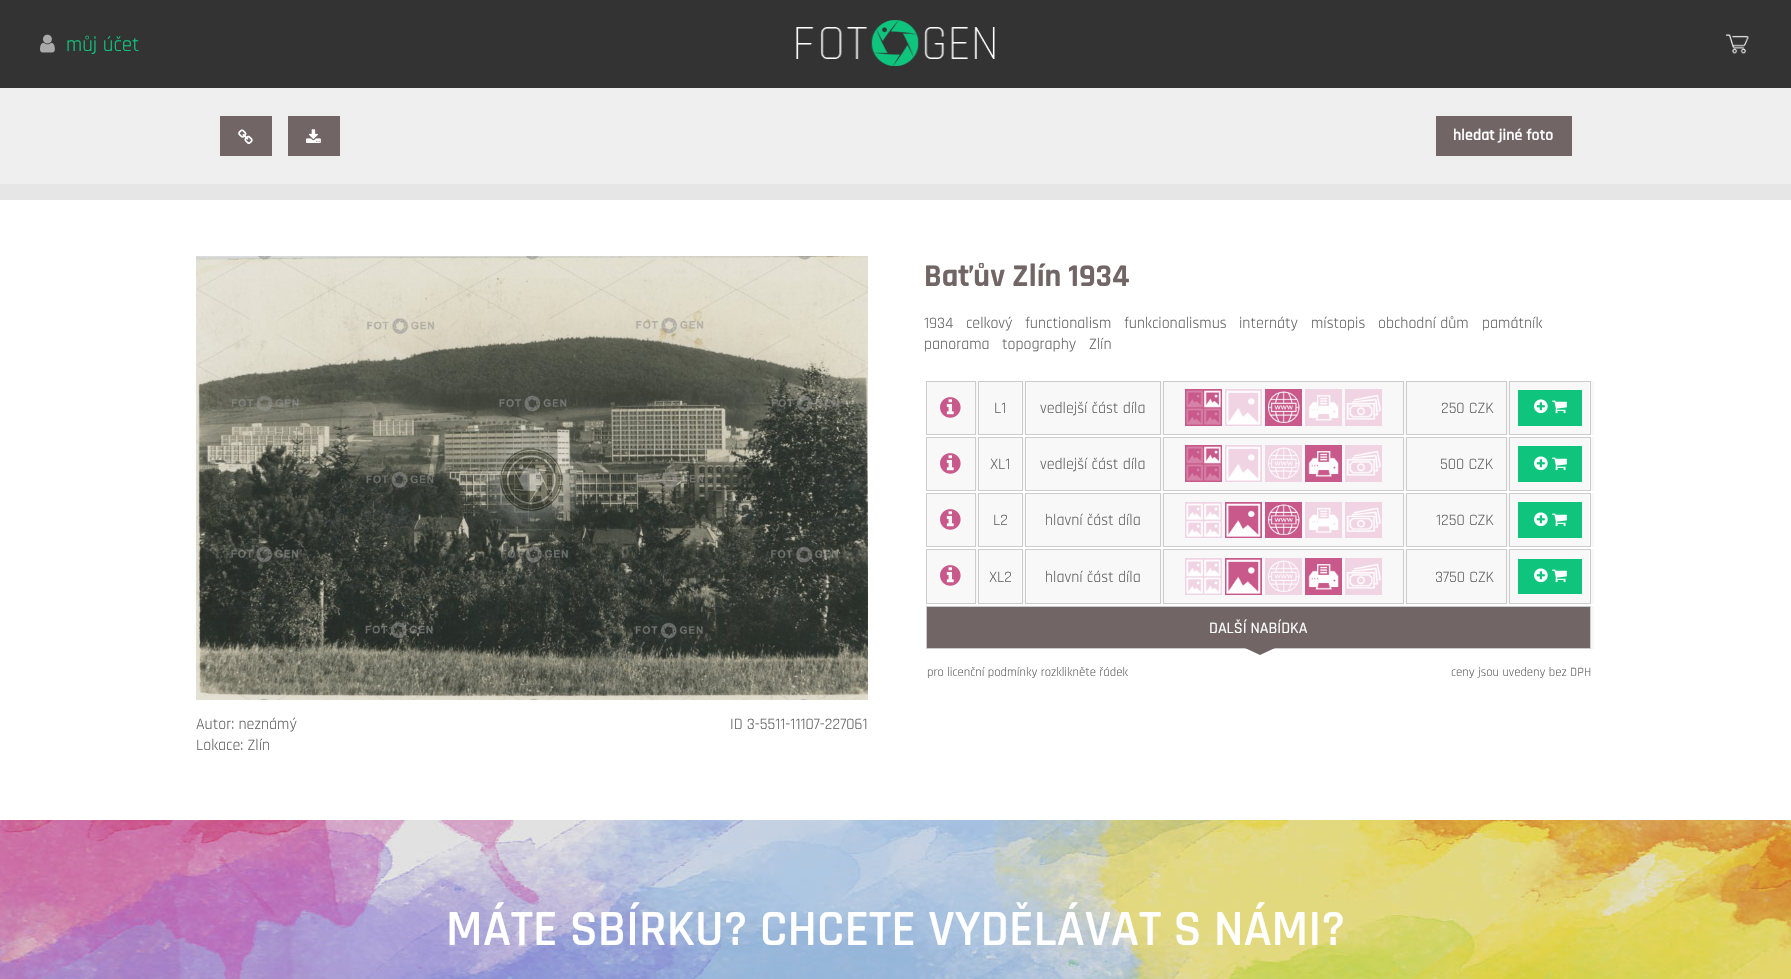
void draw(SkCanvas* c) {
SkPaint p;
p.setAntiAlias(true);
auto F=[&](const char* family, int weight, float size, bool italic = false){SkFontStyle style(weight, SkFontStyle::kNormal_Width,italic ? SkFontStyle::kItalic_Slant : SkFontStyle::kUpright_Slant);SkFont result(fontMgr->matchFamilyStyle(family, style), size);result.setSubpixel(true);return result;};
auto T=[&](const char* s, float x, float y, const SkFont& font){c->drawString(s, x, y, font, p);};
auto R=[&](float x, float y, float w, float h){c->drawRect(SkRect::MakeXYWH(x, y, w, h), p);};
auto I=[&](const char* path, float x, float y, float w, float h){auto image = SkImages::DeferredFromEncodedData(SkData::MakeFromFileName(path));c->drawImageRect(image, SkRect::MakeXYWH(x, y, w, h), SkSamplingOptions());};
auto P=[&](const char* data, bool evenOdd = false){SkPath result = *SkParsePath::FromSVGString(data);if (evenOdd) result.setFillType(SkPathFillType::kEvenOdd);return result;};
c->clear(0xffffffff);
p.setColor(0xff333333);
R(0,0,1791,88);
I("1.png",40,34,15,19);
auto f1 = F("Rajdhani",400,21);
p.setColor(0xff0fc57e);
T("můj účet",66,51,f1);
I("2.png",796,20,199,46);
I("3.png",1725,34,24,20);
p.setColor(0xffefefef);
R(0,88,1791,96);
p.setColor(0xff716565);
R(220,116,52,40);
I("4.png",238,129,15,15);
R(288,116,52,40);
I("5.png",306,129,15,14);
R(1436,116,136,40);
auto f2 = F("Rajdhani",600,16);
p.setColor(0xffffffff);
T("hledat jiné foto",1453,140,f2);
p.setColor(0xffe6e6e6);
R(0,184,1791,16);
auto f3 = F("Rajdhani",700,32);
p.setColor(0xff716565);
T("Baťův Zlín 1934",924,286,f3);
auto f4 = F("Rajdhani",400,16);
p.setColor(0xff666666);
T("1934",924,328,f4);
T("celkový",966,328,f4);
T("functionalism",1025,328,f4);
T("funkcionalismus",1124,328,f4);
T("internáty",1239,328,f4);
T("místopis",1311,328,f4);
T("obchodní dům",1378,328,f4);
T("památník",1482,328,f4);
T("panorama",924,349,f4);
T("topography",1002,349,f4);
T("Zlín",1089,349,f4);
p.setColor(0xfff8f8f8);
R(927,381,667,54);
p.setStroke(true);
p.setStrokeWidth(1);
p.setColor(0xffcccccc);
c->drawRect(SkRect::MakeXYWH(926.5,381.5,49,53),p);
I("6.png",940,397,21,21);
c->drawRect(SkRect::MakeXYWH(978.5,381.5,44,53),p);
p.setStroke(false);
p.setColor(0xff666666);
T("L1",994,413,f4);
p.setStroke(true);
p.setColor(0xffcccccc);
c->drawRect(SkRect::MakeXYWH(1025.5,381.5,135,53),p);
p.setStroke(false);
p.setColor(0xff666666);
T("vedlejší část díla",1040,413,f4);
p.setStroke(true);
p.setColor(0xffcccccc);
c->drawRect(SkRect::MakeXYWH(1163.5,381.5,240,53),p);
I("7.png",1185,389,37,37);
I("8.png",1225,389,37,37);
I("9.png",1265,389,37,37);
I("10.png",1305,389,37,37);
I("11.png",1345,389,37,37);
c->drawRect(SkRect::MakeXYWH(1406.5,381.5,100,53),p);
p.setStroke(false);
p.setColor(0xff666666);
T("250 CZK",1441,413,f4);
p.setStroke(true);
p.setColor(0xffcccccc);
c->drawRect(SkRect::MakeXYWH(1509.5,381.5,81,53),p);
p.setStroke(false);
p.setColor(0xff0fc57e);
R(1518,390,64,36);
I("12.png",1534,399,14,15);
I("13.png",1552,400,15,14);
p.setColor(0xfff8f8f8);
R(927,437,667,54);
p.setStroke(true);
p.setColor(0xffcccccc);
c->drawRect(SkRect::MakeXYWH(926.5,437.5,49,53),p);
I("6.png",940,453,21,21);
c->drawRect(SkRect::MakeXYWH(978.5,437.5,44,53),p);
p.setStroke(false);
p.setColor(0xff666666);
T("XL1",990,469,f4);
p.setStroke(true);
p.setColor(0xffcccccc);
c->drawRect(SkRect::MakeXYWH(1025.5,437.5,135,53),p);
p.setStroke(false);
p.setColor(0xff666666);
T("vedlejší část díla",1040,469,f4);
p.setStroke(true);
p.setColor(0xffcccccc);
c->drawRect(SkRect::MakeXYWH(1163.5,437.5,240,53),p);
I("7.png",1185,445,37,37);
I("8.png",1225,445,37,37);
I("14.png",1265,445,37,37);
I("15.png",1305,445,37,37);
I("11.png",1345,445,37,37);
c->drawRect(SkRect::MakeXYWH(1406.5,437.5,100,53),p);
p.setStroke(false);
p.setColor(0xff666666);
T("500 CZK",1440,469,f4);
p.setStroke(true);
p.setColor(0xffcccccc);
c->drawRect(SkRect::MakeXYWH(1509.5,437.5,81,53),p);
p.setStroke(false);
p.setColor(0xff0fc57e);
R(1518,446,64,36);
I("12.png",1534,456,14,15);
I("13.png",1552,457,15,14);
p.setColor(0xfff8f8f8);
R(927,493,667,54);
p.setStroke(true);
p.setColor(0xffcccccc);
c->drawRect(SkRect::MakeXYWH(926.5,493.5,49,53),p);
I("6.png",940,509,21,21);
c->drawRect(SkRect::MakeXYWH(978.5,493.5,44,53),p);
p.setStroke(false);
p.setColor(0xff666666);
T("L2",993,525,f4);
p.setStroke(true);
p.setColor(0xffcccccc);
c->drawRect(SkRect::MakeXYWH(1025.5,493.5,135,53),p);
p.setStroke(false);
p.setColor(0xff666666);
T("hlavní část díla",1045,525,f4);
p.setStroke(true);
p.setColor(0xffcccccc);
c->drawRect(SkRect::MakeXYWH(1163.5,493.5,240,53),p);
I("16.png",1185,502,37,36);
I("17.png",1225,502,37,36);
I("18.png",1265,502,37,36);
I("19.png",1305,502,37,36);
I("20.png",1345,502,37,36);
c->drawRect(SkRect::MakeXYWH(1406.5,493.5,100,53),p);
p.setStroke(false);
p.setColor(0xff666666);
T("1250 CZK",1436,525,f4);
p.setStroke(true);
p.setColor(0xffcccccc);
c->drawRect(SkRect::MakeXYWH(1509.5,493.5,81,53),p);
p.setStroke(false);
p.setColor(0xff0fc57e);
R(1518,502,64,36);
I("12.png",1534,512,14,15);
I("13.png",1552,513,15,14);
p.setColor(0xfff8f8f8);
R(927,549,667,55);
p.setStroke(true);
p.setColor(0xffcccccc);
c->drawRect(SkRect::MakeXYWH(926.5,549.5,49,54),p);
I("6.png",940,565,21,21);
c->drawRect(SkRect::MakeXYWH(978.5,549.5,44,54),p);
p.setStroke(false);
p.setColor(0xff666666);
T("XL2",989,582,f4);
p.setStroke(true);
p.setColor(0xffcccccc);
c->drawRect(SkRect::MakeXYWH(1025.5,549.5,135,54),p);
p.setStroke(false);
p.setColor(0xff666666);
T("hlavní část díla",1045,582,f4);
p.setStroke(true);
p.setColor(0xffcccccc);
c->drawRect(SkRect::MakeXYWH(1163.5,549.5,240,54),p);
I("21.png",1185,558,37,37);
I("22.png",1225,558,37,37);
I("14.png",1265,558,37,37);
I("15.png",1305,558,37,37);
I("11.png",1345,558,37,37);
c->drawRect(SkRect::MakeXYWH(1406.5,549.5,100,54),p);
p.setStroke(false);
p.setColor(0xff666666);
T("3750 CZK",1435,582,f4);
p.setStroke(true);
p.setColor(0xffcccccc);
c->drawRect(SkRect::MakeXYWH(1509.5,549.5,81,54),p);
p.setStroke(false);
p.setColor(0xff0fc57e);
R(1518,559,64,35);
I("12.png",1534,568,14,15);
I("13.png",1552,569,15,14);
p.setColor(0xfff8f8f8);
R(1591,606,3,43);
p.setColor(0xff716565);
c->drawRect(SkRect::MakeXYWH(926.5,606.5,664,42),p);
p.setStroke(true);
p.setColor(0xffcccccc);
c->drawRect(SkRect::MakeXYWH(926.5,606.5,664,42),p);
auto f5 = F("Rajdhani",500,16);
p.setStroke(false);
p.setColor(0xffffffff);
T("DALŠÍ NABÍDKA",1209,633,f5);
p.setColor(0xff716565);
c->drawPath(P("M1245 648h30l-15 7z"),p);
auto f6 = F("Rajdhani",400,12.75);
p.setColor(0xff666666);
T("pro licenční podmínky rozklikněte řádek",927,676,f6);
T("ceny jsou uvedeny bez DPH",1451,676,f6);
I("23.png",196,256,672,444);
T("Autor: neznámý",196,729,f4);
T("Lokace: Zlín",196,750,f4);
T("ID 3-5511-11107-227061",730,729,f4);
I("24.png",0,820,1791,159);
auto f7 = F("Rajdhani",600,51.25);
p.setColor(0xffffffff);
T("MÁTE SBÍRKU? CHCETE VYDĚLÁVAT S NÁMI?",446,945,f7);
}
